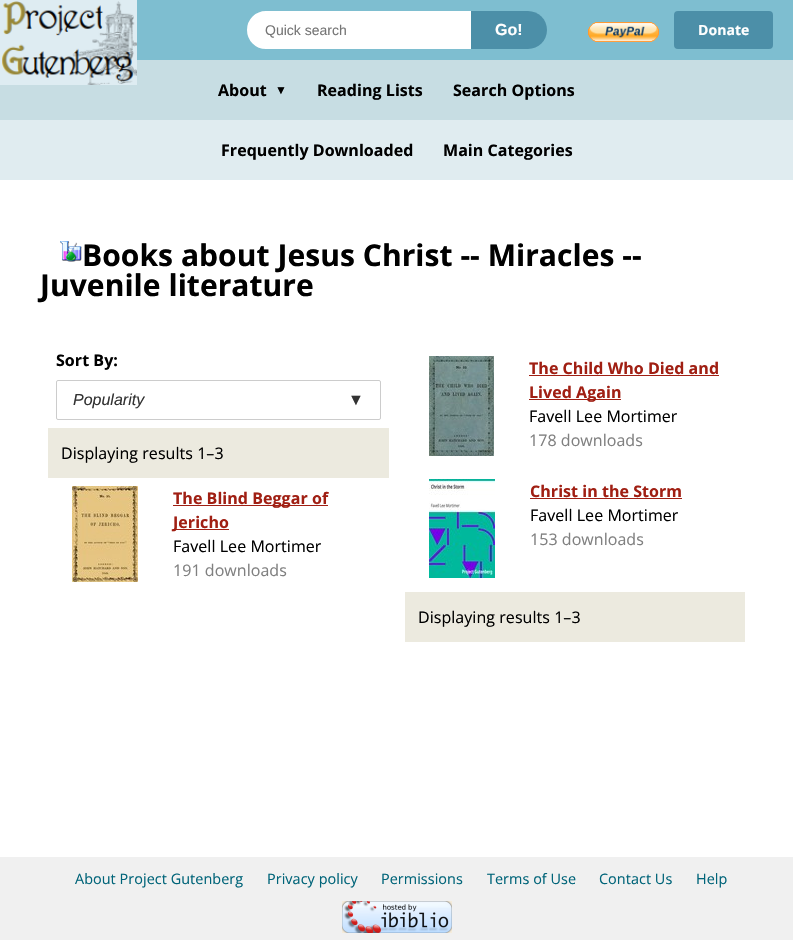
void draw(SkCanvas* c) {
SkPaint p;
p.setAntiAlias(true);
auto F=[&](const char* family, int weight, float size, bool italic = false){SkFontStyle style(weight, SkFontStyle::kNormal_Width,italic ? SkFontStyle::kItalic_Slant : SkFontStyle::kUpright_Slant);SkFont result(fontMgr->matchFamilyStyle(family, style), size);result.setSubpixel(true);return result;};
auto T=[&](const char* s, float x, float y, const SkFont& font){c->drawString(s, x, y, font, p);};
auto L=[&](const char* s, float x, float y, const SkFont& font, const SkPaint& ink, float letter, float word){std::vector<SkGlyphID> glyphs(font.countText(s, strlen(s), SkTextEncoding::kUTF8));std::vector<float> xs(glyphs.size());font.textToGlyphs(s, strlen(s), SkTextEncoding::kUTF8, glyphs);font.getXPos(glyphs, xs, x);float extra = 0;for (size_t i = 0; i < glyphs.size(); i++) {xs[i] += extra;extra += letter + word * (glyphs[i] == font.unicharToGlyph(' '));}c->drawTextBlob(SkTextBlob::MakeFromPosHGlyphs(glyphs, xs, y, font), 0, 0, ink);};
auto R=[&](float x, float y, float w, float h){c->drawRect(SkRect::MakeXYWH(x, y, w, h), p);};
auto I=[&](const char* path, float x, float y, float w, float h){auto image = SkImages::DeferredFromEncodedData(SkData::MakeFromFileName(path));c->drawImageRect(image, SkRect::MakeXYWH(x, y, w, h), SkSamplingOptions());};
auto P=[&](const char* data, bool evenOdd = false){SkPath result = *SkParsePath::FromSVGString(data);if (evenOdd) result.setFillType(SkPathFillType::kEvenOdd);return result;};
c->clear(0xffffffff);
p.setColor(0xffc7dde3);
R(0,60,793,60);
I("1.png",0,0,137,85);
p.setColor(0xff7ebed0);
R(137,0,656,60);
p.setColor(0xffffffff);
c->drawPath(P("M266 12h204v36h-204c-10 0-18-8-18-18c0-10 8-18 18-18z"),p);
p.setStroke(true);
p.setStrokeWidth(2);
c->drawPath(P("M266 12h204v36h-204c-10 0-18-8-18-18c0-10 8-18 18-18z"),p);
auto f1 = F("Liberation Sans",400,14);
p.setStroke(false);
p.setColor(0xff757575);
T("Quick search",265,35,f1);
p.setColor(0xff4c8fa8);
c->drawPath(P("M471 11h57c10.5 0 19 8.5 19 19c0 10.5-8.5 19-19 19h-57z"),p);
auto f2 = F("Liberation Sans",700,16);
p.setColor(0xffffffff);
T("Go!",495,35,f2);
I("2.png",588,22,71,20);
p.setColor(0xff4c8fa8);
c->drawRoundRect(SkRect::MakeXYWH(675,12,97,36),3,3,p);
p.setStroke(true);
c->drawRoundRect(SkRect::MakeXYWH(675,12,97,36),3,3,p);
auto f3 = F("Open Sans",700,14);
p.setStroke(false);
p.setColor(0xffffffff);
L("Donate",698,35,f3,p,.05,0);
auto f4 = F("Open Sans",700,16);
p.setColor(0xff000000);
L("About",218,96,f4,p,.05,0);
auto f5 = F("Liberation Sans",700,12);
L("▼",275,94,f5,p,.05,0);
L("Reading Lists",317,96,f4,p,.05,0);
L("Search Options",453,96,f4,p,.05,0);
p.setColor(0xffe0ecf0);
R(0,120,793,60);
p.setColor(0xff000000);
L("Frequently Downloaded",221,156,f4,p,.05,0);
L("Main Categories",443,156,f4,p,.05,0);
I("3.png",60,241,22,21);
auto f6 = F("Open Sans",700,30);
L("Books about Jesus Christ -- Miracles --",82,266,f6,p,.05,0);
L("Juvenile literature",40,296,f6,p,.05,0);
L("Sort By:",56,366,f4,p,.05,0);
I("4.png",429,356,65,100);
p.setColor(0xffa01f13);
L("The Child Who Died and",529,374,f4,p,.05,0);
R(529,375,190,1);
R(529,399,92,1);
L("Lived Again",529,398,f4,p,.05,0);
auto f7 = F("Open Sans",400,16);
p.setColor(0xff000000);
L("Favell Lee Mortimer",529,422,f7,p,.05,0);
p.setColor(0xff808080);
L("178 downloads",529,446,f7,p,.05,0);
p.setStroke(true);
p.setStrokeWidth(1);
p.setColor(0xffcccccc);
c->drawRoundRect(SkRect::MakeXYWH(56.5,380.5,324,39),1.5,1.5,p);
auto f8 = F("Liberation Sans",400,16,true);
p.setStroke(false);
p.setColor(0xff333333);
T("Popularity",73,405,f8);
T("▼",348,405,f8);
p.setColor(0xffeceadf);
R(48,428,341,50);
p.setColor(0xff000000);
L("Displaying results 1–3",61,459,f7,p,.05,0);
I("5.png",72,486,66,96);
p.setColor(0xffa01f13);
R(173,505,155,1);
L("The Blind Beggar of",173,504,f4,p,.05,0);
R(173,529,56,1);
L("Jericho",173,528,f4,p,.05,0);
p.setColor(0xff000000);
L("Favell Lee Mortimer",173,552,f7,p,.05,0);
p.setColor(0xff808080);
L("191 downloads",173,576,f7,p,.05,0);
I("6.png",429,479,66,99);
p.setColor(0xffa01f13);
L("Christ in the Storm",530,497,f4,p,.05,0);
R(530,498,152,1);
p.setColor(0xff000000);
L("Favell Lee Mortimer",530,521,f7,p,.05,0);
p.setColor(0xff808080);
L("153 downloads",530,545,f7,p,.05,0);
p.setColor(0xffeceadf);
R(405,592,340,50);
p.setColor(0xff000000);
L("Displaying results 1–3",418,623,f7,p,.05,0);
p.setColor(0xfff0f0f0);
R(0,857,793,83);
auto f9 = F("Open Sans",400,14.4);
p.setColor(0xff006479);
L("About Project Gutenberg",75,884,f9,p,.05,0);
L("Privacy policy",267,884,f9,p,.05,0);
L("Permissions",381,884,f9,p,.05,0);
L("Terms of Use",487,884,f9,p,.05,0);
L("Contact Us",599,884,f9,p,.05,0);
L("Help",696,884,f9,p,.05,0);
I("7.png",342,901,110,32);
}
